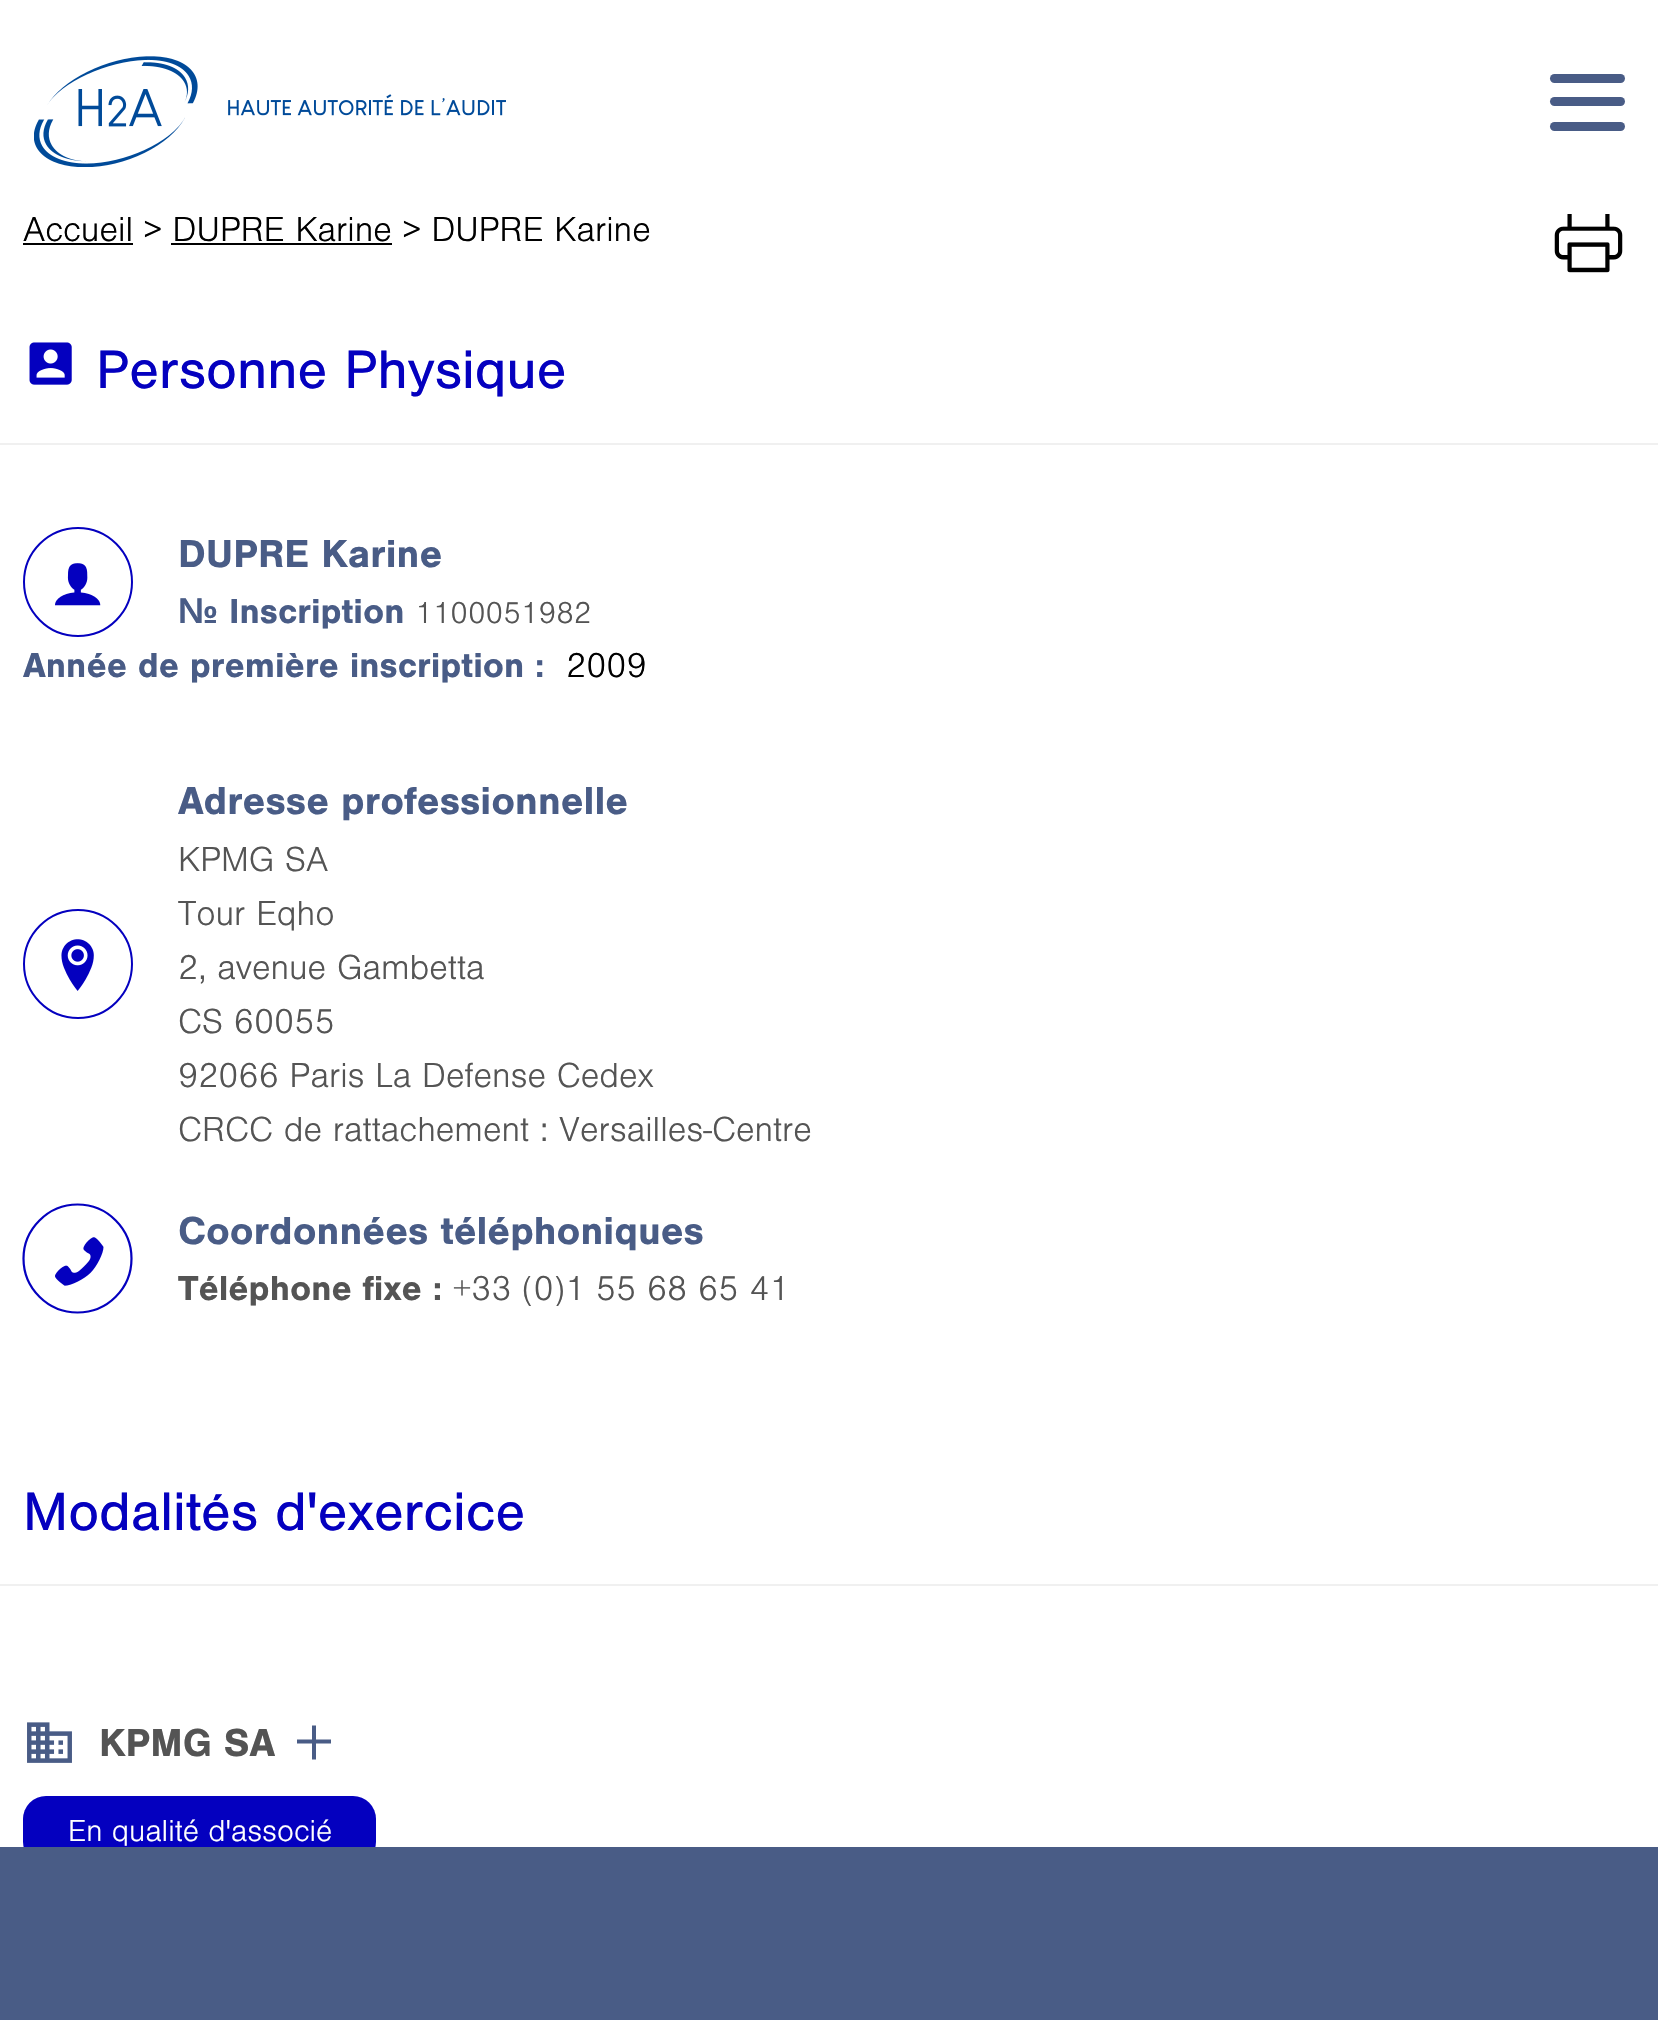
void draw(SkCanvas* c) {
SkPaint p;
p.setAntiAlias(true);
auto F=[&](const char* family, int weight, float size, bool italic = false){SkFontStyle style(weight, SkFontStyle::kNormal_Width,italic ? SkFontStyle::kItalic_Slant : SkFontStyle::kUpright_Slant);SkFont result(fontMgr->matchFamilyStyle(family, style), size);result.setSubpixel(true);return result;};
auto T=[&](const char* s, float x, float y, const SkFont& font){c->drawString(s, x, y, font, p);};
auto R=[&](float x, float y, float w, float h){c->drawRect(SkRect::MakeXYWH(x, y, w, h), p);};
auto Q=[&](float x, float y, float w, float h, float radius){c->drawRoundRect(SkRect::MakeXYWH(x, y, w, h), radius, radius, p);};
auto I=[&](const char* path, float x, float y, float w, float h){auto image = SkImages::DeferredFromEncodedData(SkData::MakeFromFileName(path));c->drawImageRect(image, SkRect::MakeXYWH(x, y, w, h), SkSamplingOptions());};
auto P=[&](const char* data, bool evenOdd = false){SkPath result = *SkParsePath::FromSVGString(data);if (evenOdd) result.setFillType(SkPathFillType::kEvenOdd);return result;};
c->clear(0xffffffff);
I("1.png",34,56,472,111);
p.setColor(0xff495c86);
Q(1550,74,75,9,4.5);
Q(1550,97,75,9,4.5);
Q(1550,122,75,9,4.5);
auto f1 = F("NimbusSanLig",400,36);
p.setColor(0xff000000);
T("Accueil > DUPRE Karine > DUPRE Karine",23,241,f1);
R(23,243,110,2);
R(171,243,221,2);
I("2.png",1554,214,69,59);
I("3.png",29,342,43,43);
auto f2 = F("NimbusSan",400,56.25);
p.setColor(0xff0400bf);
T("Personne Physique",96,388,f2);
p.setColor(0xfff0f0f0);
R(0,443,1658,2);
p.setStroke(true);
p.setStrokeWidth(2);
p.setColor(0xff0400bf);
c->drawCircle(78,582,54,p);
I("4.png",55,563,46,43);
auto f3 = F("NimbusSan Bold",700,40.5);
p.setStroke(false);
p.setColor(0xff495c86);
T("DUPRE Karine",178,567,f3);
auto f4 = F("Liberation Sans",700,36);
T("№",178,623,f4);
auto f5 = F("NimbusSan Bold",700,36);
T("Inscription",229,623,f5);
auto f6 = F("NimbusSanLig",400,31.5);
p.setColor(0xff545454);
T("1100051982",415,623,f6);
p.setColor(0xff495c86);
T("Année de première inscription :",23,677,f5);
p.setColor(0xff000000);
T("2009",566,677,f1);
p.setStroke(true);
p.setColor(0xff0400bf);
c->drawCircle(78,964,54,p);
I("5.png",61,939,33,52);
p.setStroke(false);
p.setColor(0xff495c86);
T("Adresse professionnelle",178,814,f3);
p.setColor(0xff545454);
T("KPMG SA",178,871,f1);
T("Tour Eqho",178,925,f1);
T("2, avenue Gambetta",178,979,f1);
T("CS 60055",178,1033,f1);
T("92066 Paris La Defense Cedex",178,1087,f1);
T("CRCC de rattachement : Versailles-Centre",178,1141,f1);
p.setStroke(true);
p.setStrokeWidth(2.2);
p.setColor(0xff0400bf);
c->drawPath(P("M77.5 1204.5c-29.5 0-54 24.5-54 54c0 30 24.5 54 54 54c30 0 54-24 54-54c0-29.5-24-54-54-54z"),p);
I("6.png",55,1237,49,49);
p.setStroke(false);
p.setColor(0xff495c86);
T("Coordonnées téléphoniques",178,1244,f3);
p.setColor(0xff545454);
T("Téléphone fixe :",178,1300,f5);
T("+33 (0)1 55 68 65 41",453,1300,f1);
p.setColor(0xff0400bf);
T("Modalités d'exercice",23,1530,f2);
p.setColor(0xfff0f0f0);
R(0,1584,1658,2);
I("7.png",27,1722,45,41);
p.setColor(0xff545454);
T("KPMG SA",99,1756,f3);
p.setColor(0xff495c86);
c->drawPath(P("M312 1725.5h4v34h-4zm19 14v4h-34v-4z"),p);
p.setColor(0xff0400bf);
Q(23,1796,353,69,23);
p.setColor(0xffffffff);
T("En qualité d'associé",68,1841,f6);
p.setColor(0xff495c86);
R(0,1847,1658,173);
}
